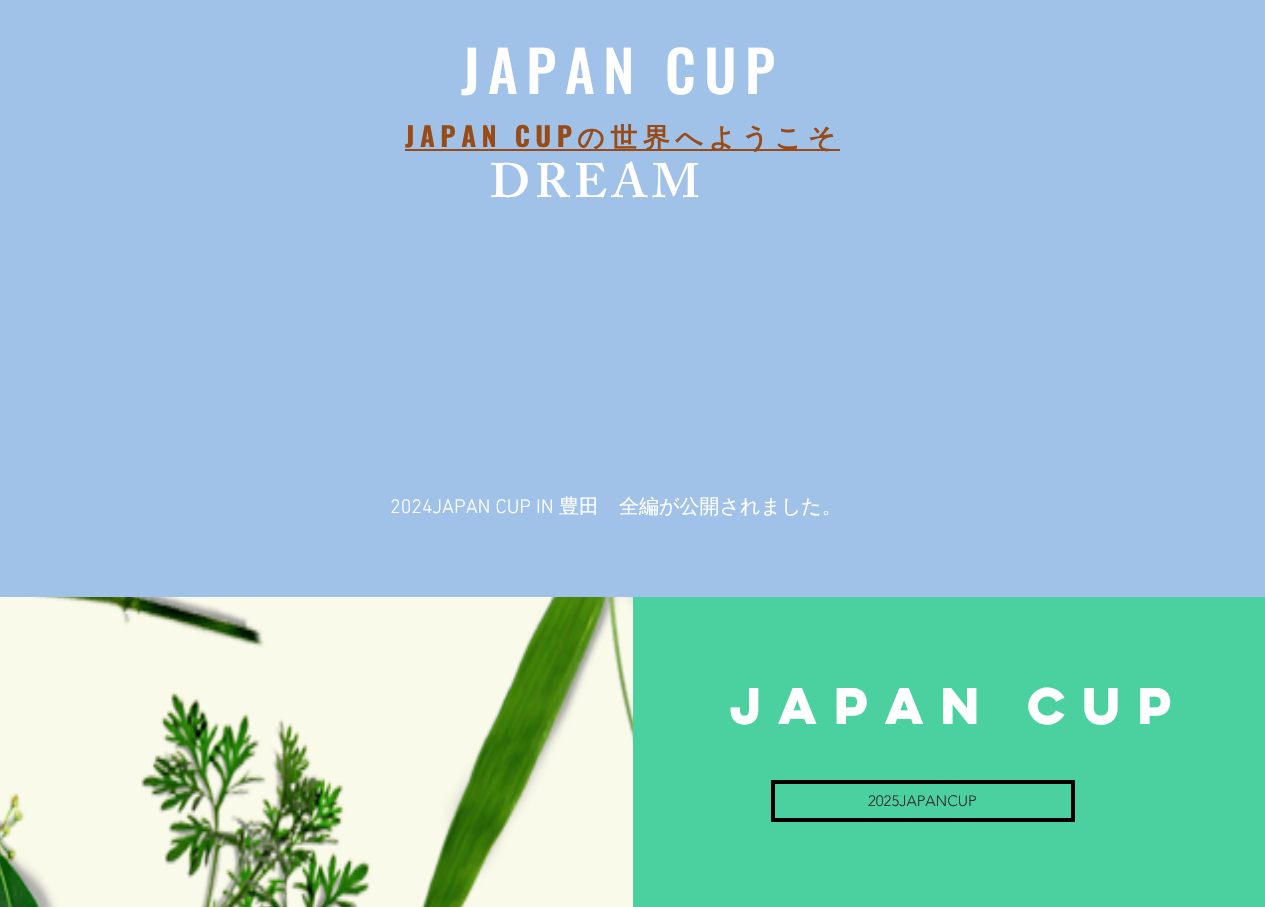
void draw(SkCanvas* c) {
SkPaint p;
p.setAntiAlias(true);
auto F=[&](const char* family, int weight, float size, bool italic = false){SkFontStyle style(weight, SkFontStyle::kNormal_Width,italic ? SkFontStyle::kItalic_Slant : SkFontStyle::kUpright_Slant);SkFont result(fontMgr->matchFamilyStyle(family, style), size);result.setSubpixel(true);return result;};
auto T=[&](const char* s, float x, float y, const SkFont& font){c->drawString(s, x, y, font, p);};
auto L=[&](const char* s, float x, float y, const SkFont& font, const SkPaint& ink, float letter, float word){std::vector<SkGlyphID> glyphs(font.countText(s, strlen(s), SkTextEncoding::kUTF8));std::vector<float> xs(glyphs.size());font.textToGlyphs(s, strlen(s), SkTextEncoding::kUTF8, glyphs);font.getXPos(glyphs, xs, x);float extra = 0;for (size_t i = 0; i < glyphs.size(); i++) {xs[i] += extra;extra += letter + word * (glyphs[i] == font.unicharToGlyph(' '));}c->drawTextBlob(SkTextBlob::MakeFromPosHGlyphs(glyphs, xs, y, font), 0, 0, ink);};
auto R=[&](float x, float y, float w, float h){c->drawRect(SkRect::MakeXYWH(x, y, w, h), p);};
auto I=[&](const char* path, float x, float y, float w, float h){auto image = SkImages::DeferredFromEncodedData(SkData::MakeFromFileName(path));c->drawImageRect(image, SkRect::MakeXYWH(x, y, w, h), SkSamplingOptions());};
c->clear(0xffa0c2e8);
auto f1 = F("Oswald",500,57);
p.setColor(0xffffffff);
L("JAPAN CUP",461,94,f1,p,8.5,0);
auto f2 = F("Oswald",700,27);
p.setColor(0xff994b17);
L("JAPAN CUP",405,147,f2,p,5.5,0);
R(405,149,435,2);
auto f3 = F("WenQuanYi Zen Hei",700,27);
L("の世界へようこそ",577,147,f3,p,5.5,0);
auto f4 = F("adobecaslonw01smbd",600,48);
p.setColor(0xffffffff);
L("DREAM",490,197,f4,p,4.75,0);
auto f5 = F("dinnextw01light",300,20);
T("2024JAPAN CUP IN",390,513,f5);
auto f6 = F("WenQuanYi Zen Hei",500,20);
T("豊田　全編が公開されました。",559,513,f6);
p.setColor(0xfffafaeb);
R(0,597,633,310);
I("1.png",0,597,633,310);
p.setColor(0xff4bd1a0);
R(633,597,632,310);
auto f7 = F("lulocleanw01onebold",700,46);
p.setColor(0xffffffff);
L("JAPAN CUP",730,724,f7,p,7,0);
p.setStroke(true);
p.setStrokeWidth(4);
p.setColor(0xff000000);
c->drawRect(SkRect::MakeXYWH(773,782,300,38),p);
auto f8 = F("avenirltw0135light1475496",300,15);
p.setStroke(false);
p.setColor(0xff2f2e2e);
T("2025JAPANCUP",868,806,f8);
}
